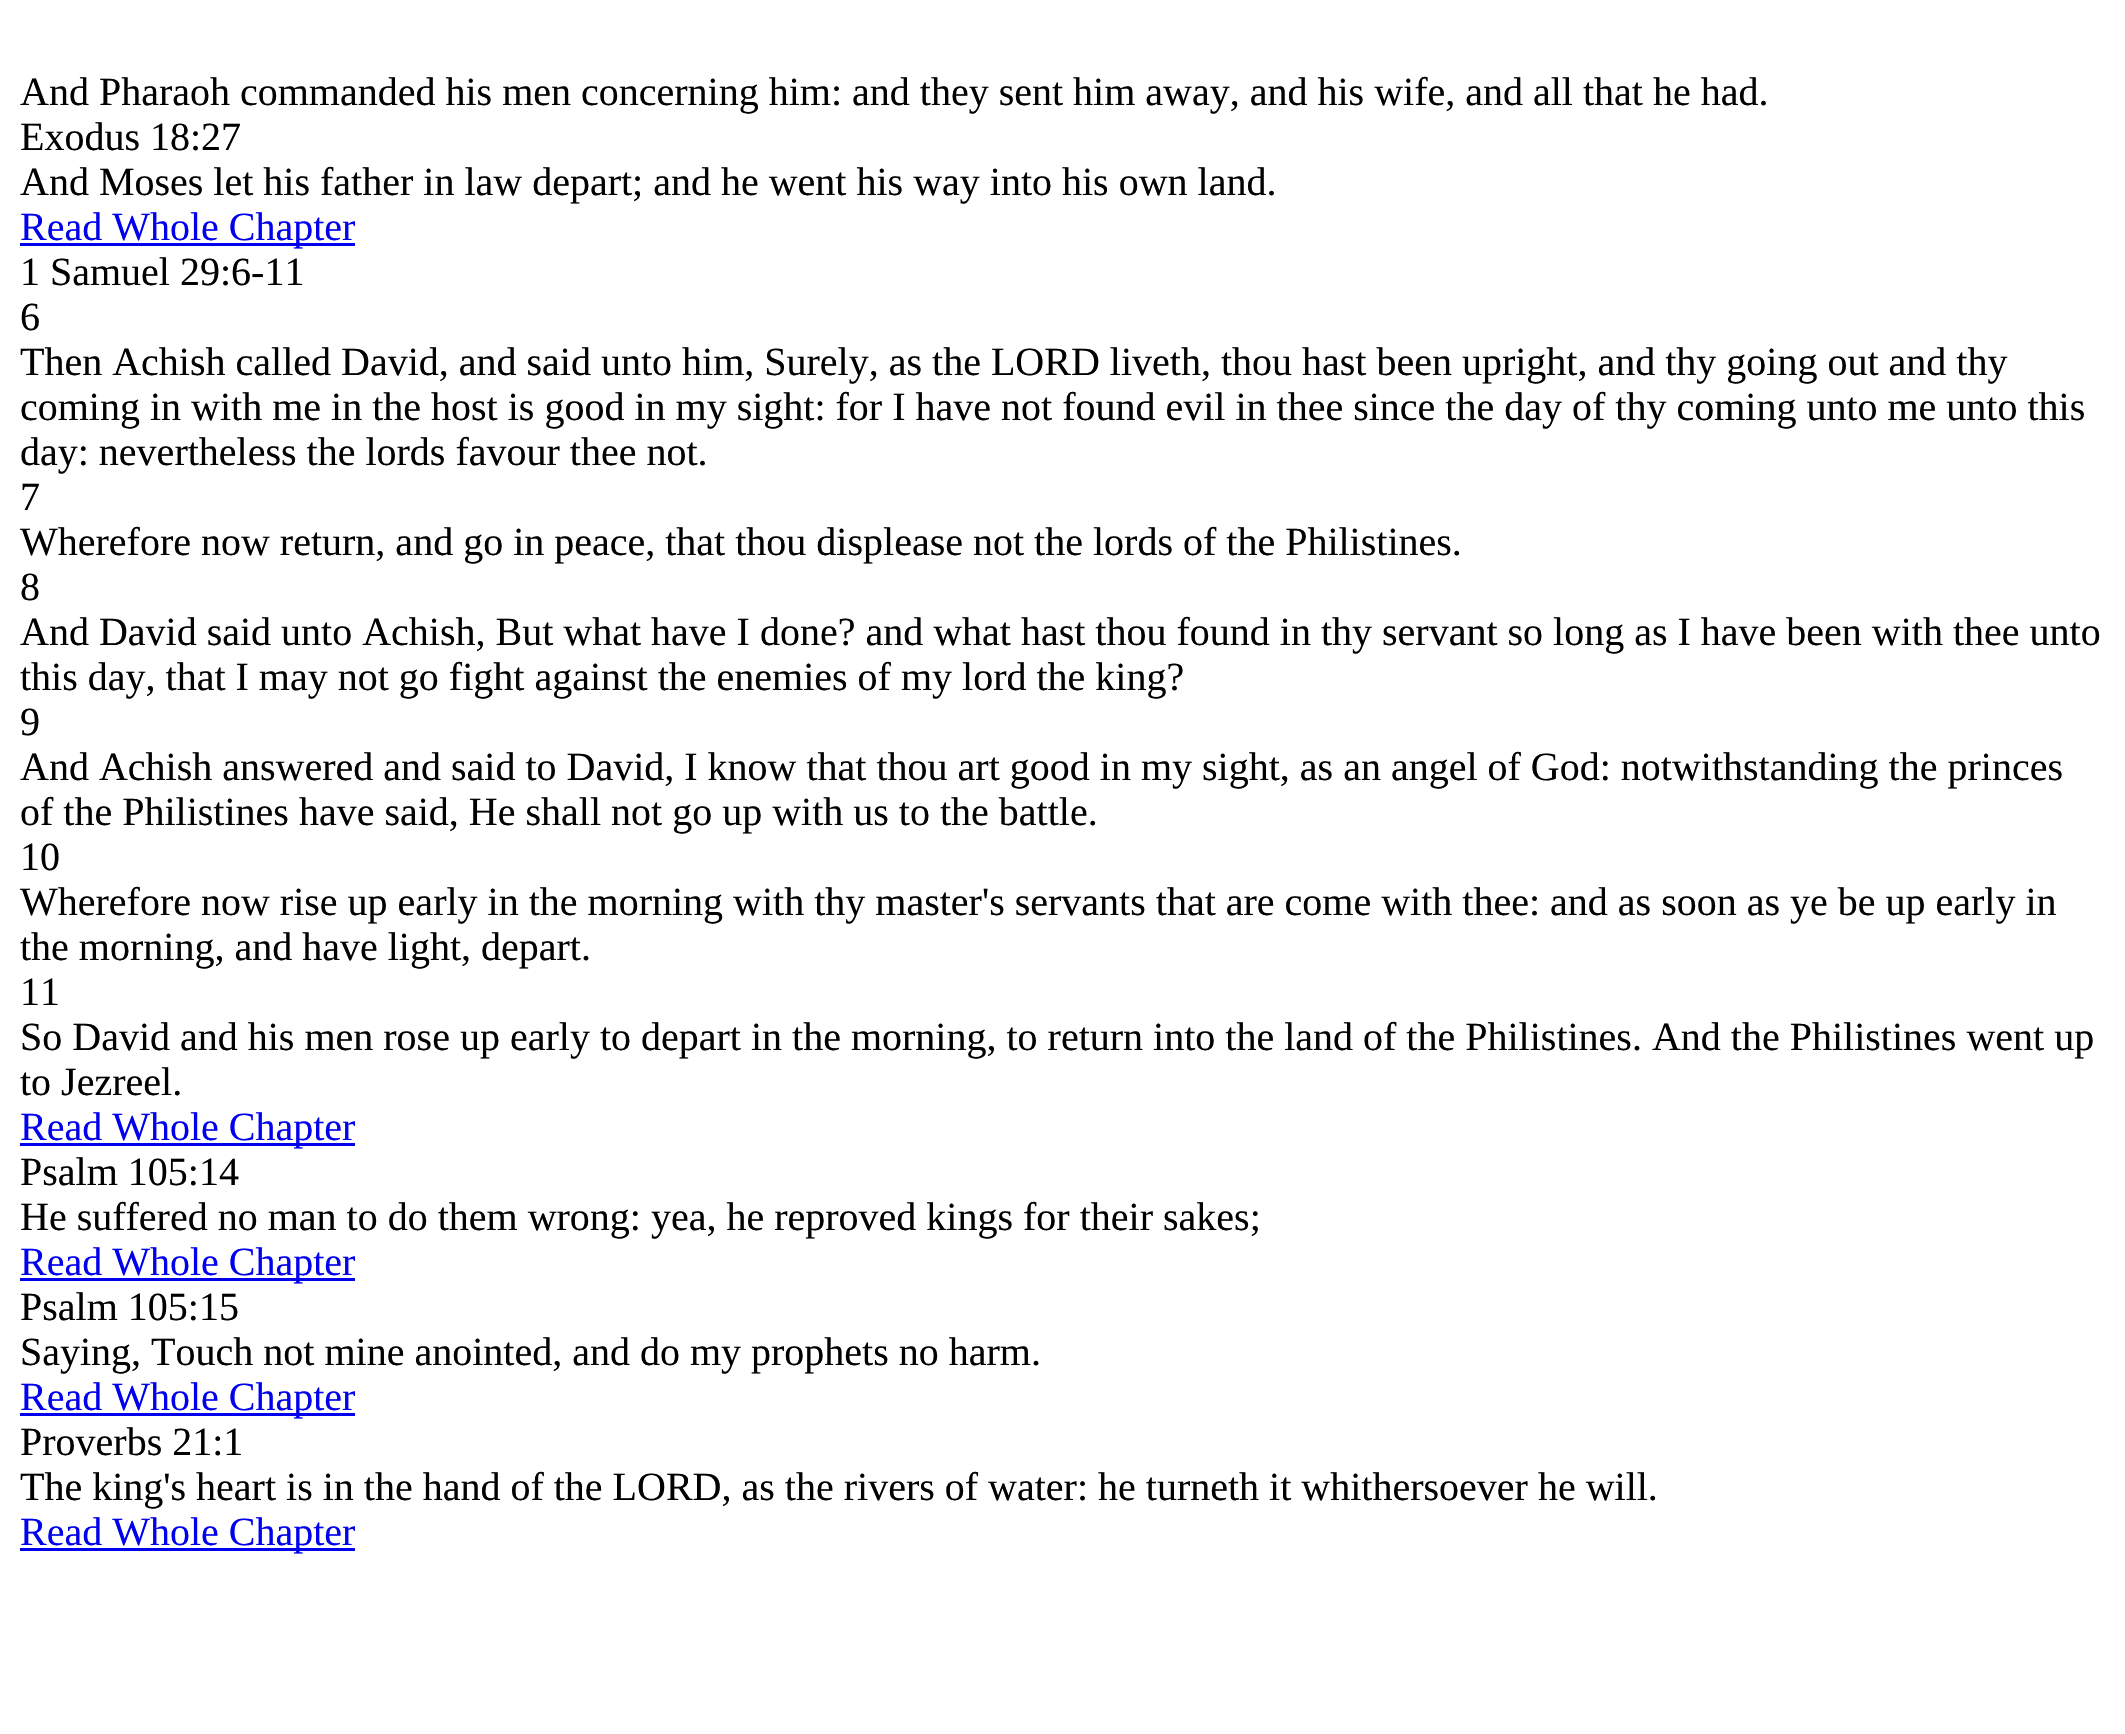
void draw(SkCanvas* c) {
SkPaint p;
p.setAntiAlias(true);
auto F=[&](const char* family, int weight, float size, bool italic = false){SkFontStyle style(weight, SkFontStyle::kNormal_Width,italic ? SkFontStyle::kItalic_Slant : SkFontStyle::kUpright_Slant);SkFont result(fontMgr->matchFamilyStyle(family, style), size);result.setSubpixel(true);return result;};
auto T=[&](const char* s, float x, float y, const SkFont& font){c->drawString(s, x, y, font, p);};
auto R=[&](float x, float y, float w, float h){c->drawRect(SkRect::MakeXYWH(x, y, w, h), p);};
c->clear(0xffffffff);
auto f1 = F("Liberation Serif",400,40);
p.setColor(0xff000000);
T("And Pharaoh commanded his men concerning him: and they sent him away, and his wife, and all that he had.",20,105,f1);
T("Exodus 18:27",20,150,f1);
T("And Moses let his father in law depart; and he went his way into his own land.",20,195,f1);
p.setColor(0xff0000ee);
R(20,243,335,3);
T("Read Whole Chapter",20,240,f1);
p.setColor(0xff000000);
T("1 Samuel 29:6-11",20,285,f1);
T("6",20,330,f1);
T("Then Achish called David, and said unto him, Surely, as the LORD liveth, thou hast been upright, and thy going out and thy",20,375,f1);
T("coming in with me in the host is good in my sight: for I have not found evil in thee since the day of thy coming unto me unto this",20,420,f1);
T("day: nevertheless the lords favour thee not.",20,465,f1);
T("7",20,510,f1);
T("Wherefore now return, and go in peace, that thou displease not the lords of the Philistines.",20,555,f1);
T("8",20,600,f1);
T("And David said unto Achish, But what have I done? and what hast thou found in thy servant so long as I have been with thee unto",20,645,f1);
T("this day, that I may not go fight against the enemies of my lord the king?",20,690,f1);
T("9",20,735,f1);
T("And Achish answered and said to David, I know that thou art good in my sight, as an angel of God: notwithstanding the princes",20,780,f1);
T("of the Philistines have said, He shall not go up with us to the battle.",20,825,f1);
T("10",20,870,f1);
T("Wherefore now rise up early in the morning with thy master's servants that are come with thee: and as soon as ye be up early in",20,915,f1);
T("the morning, and have light, depart.",20,960,f1);
T("11",20,1005,f1);
T("So David and his men rose up early to depart in the morning, to return into the land of the Philistines. And the Philistines went up",20,1050,f1);
T("to Jezreel.",20,1095,f1);
p.setColor(0xff0000ee);
R(20,1143,335,3);
T("Read Whole Chapter",20,1140,f1);
p.setColor(0xff000000);
T("Psalm 105:14",20,1185,f1);
T("He suffered no man to do them wrong: yea, he reproved kings for their sakes;",20,1230,f1);
p.setColor(0xff0000ee);
R(20,1278,335,3);
T("Read Whole Chapter",20,1275,f1);
p.setColor(0xff000000);
T("Psalm 105:15",20,1320,f1);
T("Saying, Touch not mine anointed, and do my prophets no harm.",20,1365,f1);
p.setColor(0xff0000ee);
R(20,1413,335,3);
T("Read Whole Chapter",20,1410,f1);
p.setColor(0xff000000);
T("Proverbs 21:1",20,1455,f1);
T("The king's heart is in the hand of the LORD, as the rivers of water: he turneth it whithersoever he will.",20,1500,f1);
p.setColor(0xff0000ee);
R(20,1548,335,3);
T("Read Whole Chapter",20,1545,f1);
}
